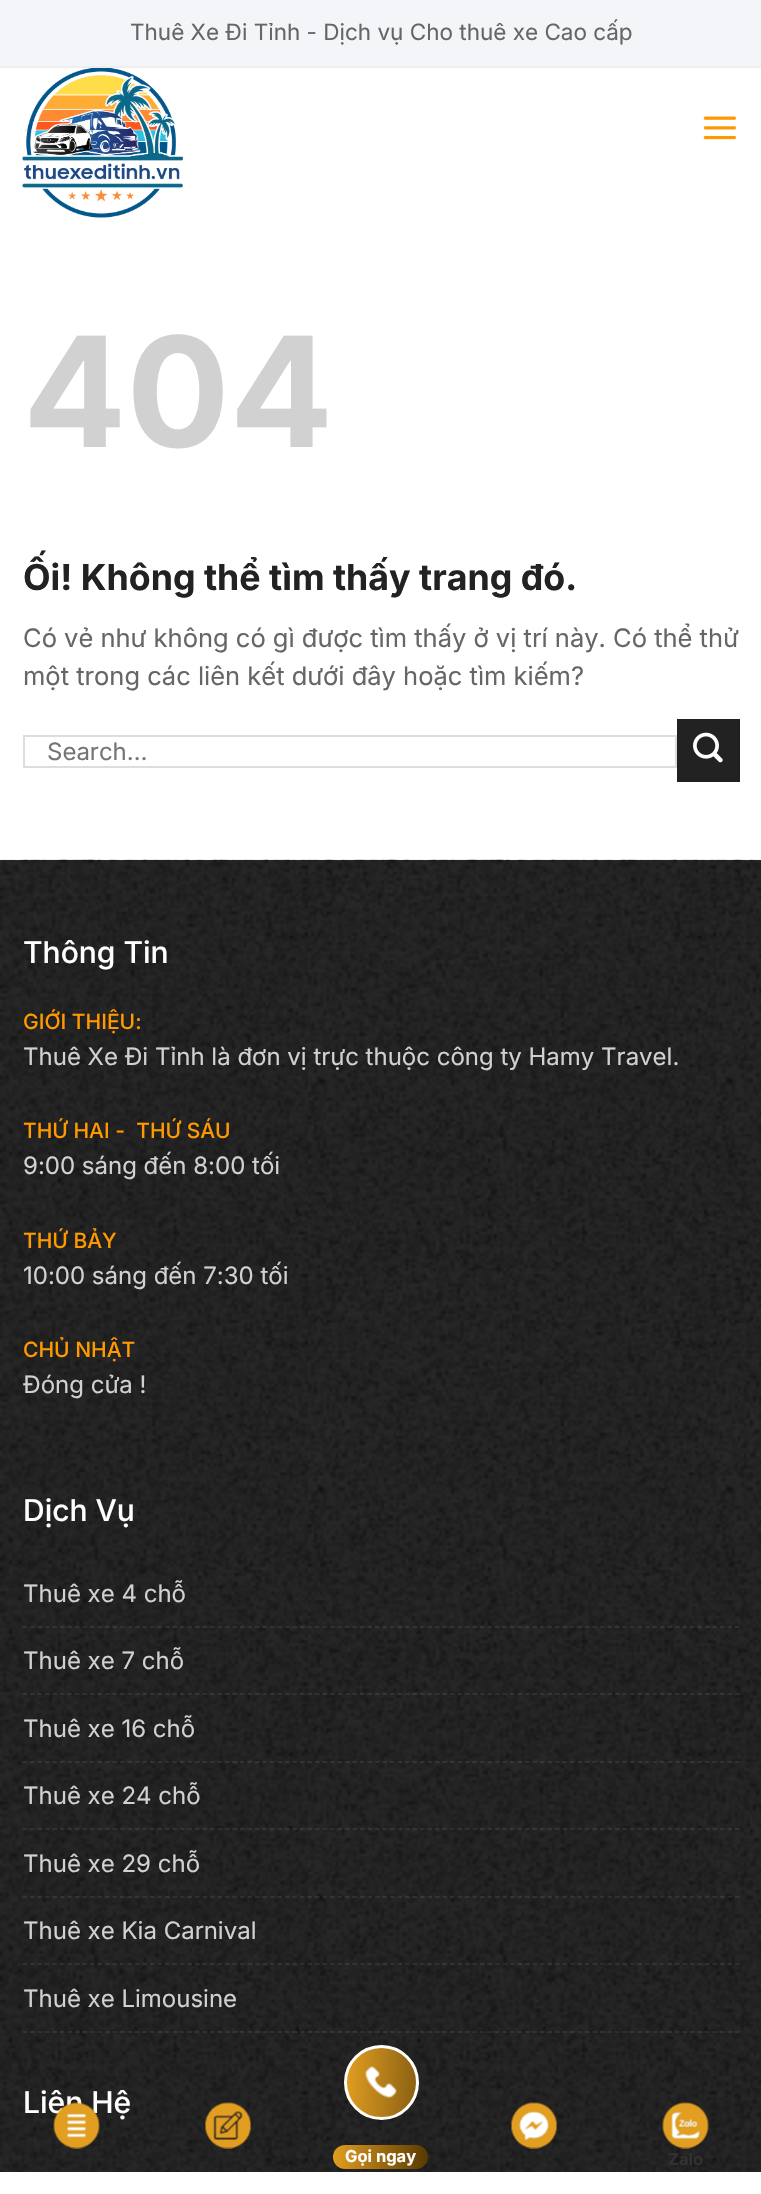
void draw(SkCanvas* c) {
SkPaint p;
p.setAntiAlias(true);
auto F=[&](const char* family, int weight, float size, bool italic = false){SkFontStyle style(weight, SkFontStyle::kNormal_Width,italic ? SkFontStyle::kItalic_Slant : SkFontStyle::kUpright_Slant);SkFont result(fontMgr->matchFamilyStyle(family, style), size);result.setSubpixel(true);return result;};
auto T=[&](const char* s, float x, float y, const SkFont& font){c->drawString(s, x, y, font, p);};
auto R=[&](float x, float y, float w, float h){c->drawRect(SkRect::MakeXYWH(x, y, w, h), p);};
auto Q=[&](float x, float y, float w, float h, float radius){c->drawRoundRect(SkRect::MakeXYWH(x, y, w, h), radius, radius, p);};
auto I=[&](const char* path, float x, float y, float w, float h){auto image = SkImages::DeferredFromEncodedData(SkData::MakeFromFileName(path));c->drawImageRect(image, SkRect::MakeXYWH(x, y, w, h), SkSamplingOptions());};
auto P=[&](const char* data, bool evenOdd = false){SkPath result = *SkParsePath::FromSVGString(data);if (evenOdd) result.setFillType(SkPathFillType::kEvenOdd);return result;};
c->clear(0xffffffff);
p.setColor(0xfff4f5f8);
R(0,0,761,66);
p.setColor(0xffeeeeee);
R(0,66,761,2);
auto f1 = F("Inter",400,22.5);
p.setColor(0xff666666);
T("Thuê Xe Đi Tỉnh - Dịch vụ Cho thuê xe Cao cấp",130,40,f1);
I("1.png",22,68,161,150);
I("2.png",703,116,33,24);
auto f2 = F("Inter",700,153);
p.setColor(0xffd1d1d1);
T("404",23,447,f2);
auto f3 = F("Inter",700,35.75);
p.setColor(0xff222222);
T("Ối! Không thể tìm thấy trang đó.",23,590,f3);
auto f4 = F("Inter",400,25.5);
p.setColor(0xff666666);
T("Có vẻ như không có gì được tìm thấy ở vị trí này. Có thể thử",23,647,f4);
T("một trong các liên kết dưới đây hoặc tìm kiếm?",23,685,f4);
p.setStroke(true);
p.setStrokeWidth(2);
p.setColor(0xffdddddd);
c->drawRect(SkRect::MakeXYWH(24,736,652,31),p);
auto f5 = F("Inter",400,24);
p.setStroke(false);
p.setColor(0xff757575);
T("Search…",47,760,f5);
p.setColor(0xff222222);
c->drawRect(SkRect::MakeXYWH(678,720,61,61),p);
p.setStroke(true);
p.setColor(0xff202020);
c->drawRect(SkRect::MakeXYWH(678,720,61,61),p);
I("3.png",693,732,30,31);
p.setStroke(false);
p.setColor(0xff282828);
R(0,860,761,1312);
I("4.png",0,859,761,1313);
auto f6 = F("Inter",500,30);
p.setColor(0xffffffff);
T("Thông Tin",23,963,f6);
auto f7 = F("Inter",500,21);
p.setColor(0xffff9900);
T("GIỚI THIỆU:",23,1029,f7);
p.setColor(0xffd1d1d1);
T("Thuê Xe Đi Tỉnh là đơn vị trực thuộc công ty Hamy Travel.",23,1065,f5);
p.setColor(0xffff9900);
T("THỨ HAI -  THỨ SÁU",23,1138,f7);
p.setColor(0xffd1d1d1);
T("9:00 sáng đến 8:00 tối",23,1174,f5);
p.setColor(0xffff9900);
T("THỨ BẢY",23,1248,f7);
p.setColor(0xffd1d1d1);
T("10:00 sáng đến 7:30 tối",23,1284,f5);
p.setColor(0xffff9900);
T("CHỦ NHẬT",23,1357,f7);
p.setColor(0xffd1d1d1);
T("Đóng cửa !",23,1393,f5);
p.setColor(0xffffffff);
T("Dịch Vụ",23,1521,f6);
p.setStroke(true);
p.setStrokeWidth(1.5);
p.setColor(0x1affffff);
p.setPathEffect(SkDashPathEffect::Make({{4.5f,3}}, 0));
c->drawPath(P("M22.5 1627h717"),p);
p.setPathEffect(nullptr);
p.setStroke(false);
p.setColor(0xffd1d1d1);
T("Thuê xe 4 chỗ",23,1602,f5);
p.setStroke(true);
p.setColor(0x1affffff);
p.setPathEffect(SkDashPathEffect::Make({{4.5f,3}}, 0));
c->drawPath(P("M22.5 1694h717"),p);
p.setPathEffect(nullptr);
p.setStroke(false);
p.setColor(0xffd1d1d1);
T("Thuê xe 7 chỗ",23,1669,f5);
p.setStroke(true);
p.setColor(0x1affffff);
p.setPathEffect(SkDashPathEffect::Make({{4.5f,3}}, 0));
c->drawPath(P("M22.5 1762h717"),p);
p.setPathEffect(nullptr);
p.setStroke(false);
p.setColor(0xffd1d1d1);
T("Thuê xe 16 chỗ",23,1737,f5);
p.setStroke(true);
p.setColor(0x1affffff);
p.setPathEffect(SkDashPathEffect::Make({{4.5f,3}}, 0));
c->drawPath(P("M22.5 1829h717"),p);
p.setPathEffect(nullptr);
p.setStroke(false);
p.setColor(0xffd1d1d1);
T("Thuê xe 24 chỗ",23,1804,f5);
p.setStroke(true);
p.setColor(0x1affffff);
p.setPathEffect(SkDashPathEffect::Make({{4.5f,3}}, 0));
c->drawPath(P("M22.5 1897h717"),p);
p.setPathEffect(nullptr);
p.setStroke(false);
p.setColor(0xffd1d1d1);
T("Thuê xe 29 chỗ",23,1872,f5);
p.setStroke(true);
p.setColor(0x1affffff);
p.setPathEffect(SkDashPathEffect::Make({{4.5f,3}}, 0));
c->drawPath(P("M22.5 1964h717"),p);
p.setPathEffect(nullptr);
p.setStroke(false);
p.setColor(0xffd1d1d1);
T("Thuê xe Kia Carnival",23,1939,f5);
p.setStroke(true);
p.setColor(0x1affffff);
p.setPathEffect(SkDashPathEffect::Make({{4.5f,3}}, 0));
c->drawPath(P("M22.5 2032h717"),p);
p.setPathEffect(nullptr);
p.setStroke(false);
p.setColor(0xffd1d1d1);
T("Thuê xe Limousine",23,2007,f5);
p.setColor(0xffffffff);
T("Liên Hệ",23,2113,f6);
I("5.png",53,2102,47,47);
I("6.png",205,2102,46,47);
I("7.png",511,2102,46,47);
c->save();
c->clipPath(P("M381.5 2045c20.5 0 37.5 17 37.5 37.5c0 20.5-17 37.5-37.5 37.5c-20.5 0-37.5-17-37.5-37.5c0-20.5 17-37.5 37.5-37.5z"),true);
{
const SkColor colors[] = {0xffe29e21,0xff8b6113};
const float stops[] = {0,1};
const SkPoint ends[] = {{345,2080}, {417,2084}};
p.setShader(SkGradientShader::MakeLinear(ends, colors, stops, 2, SkTileMode::kClamp));
p.setAlpha(255);
}
R(347,2048,69,69);
c->restore();
p.setStroke(true);
p.setStrokeWidth(3);
p.setShader(nullptr);
p.setColor(0xffffffff);
c->drawCircle(381.5,2082.5,36,p);
I("8.png",365,2066,32,32);
p.setStroke(false);
{
const SkColor colors[] = {0xffe29e21,0xff583900};
const float stops[] = {0,1};
const SkPoint ends[] = {{333,2155}, {428,2159}};
p.setShader(SkGradientShader::MakeLinear(ends, colors, stops, 2, SkTileMode::kClamp));
p.setAlpha(255);
}
Q(333,2145,95,24,12);
auto f8 = F("Inter",700,16.5);
p.setShader(nullptr);
p.setColor(0xffffffff);
T("Gọi ngay",345,2162,f8);
I("9.png",662,2102,47,47);
p.setColor(0xff313131);
T("Zalo",668,2165,f8);
}
